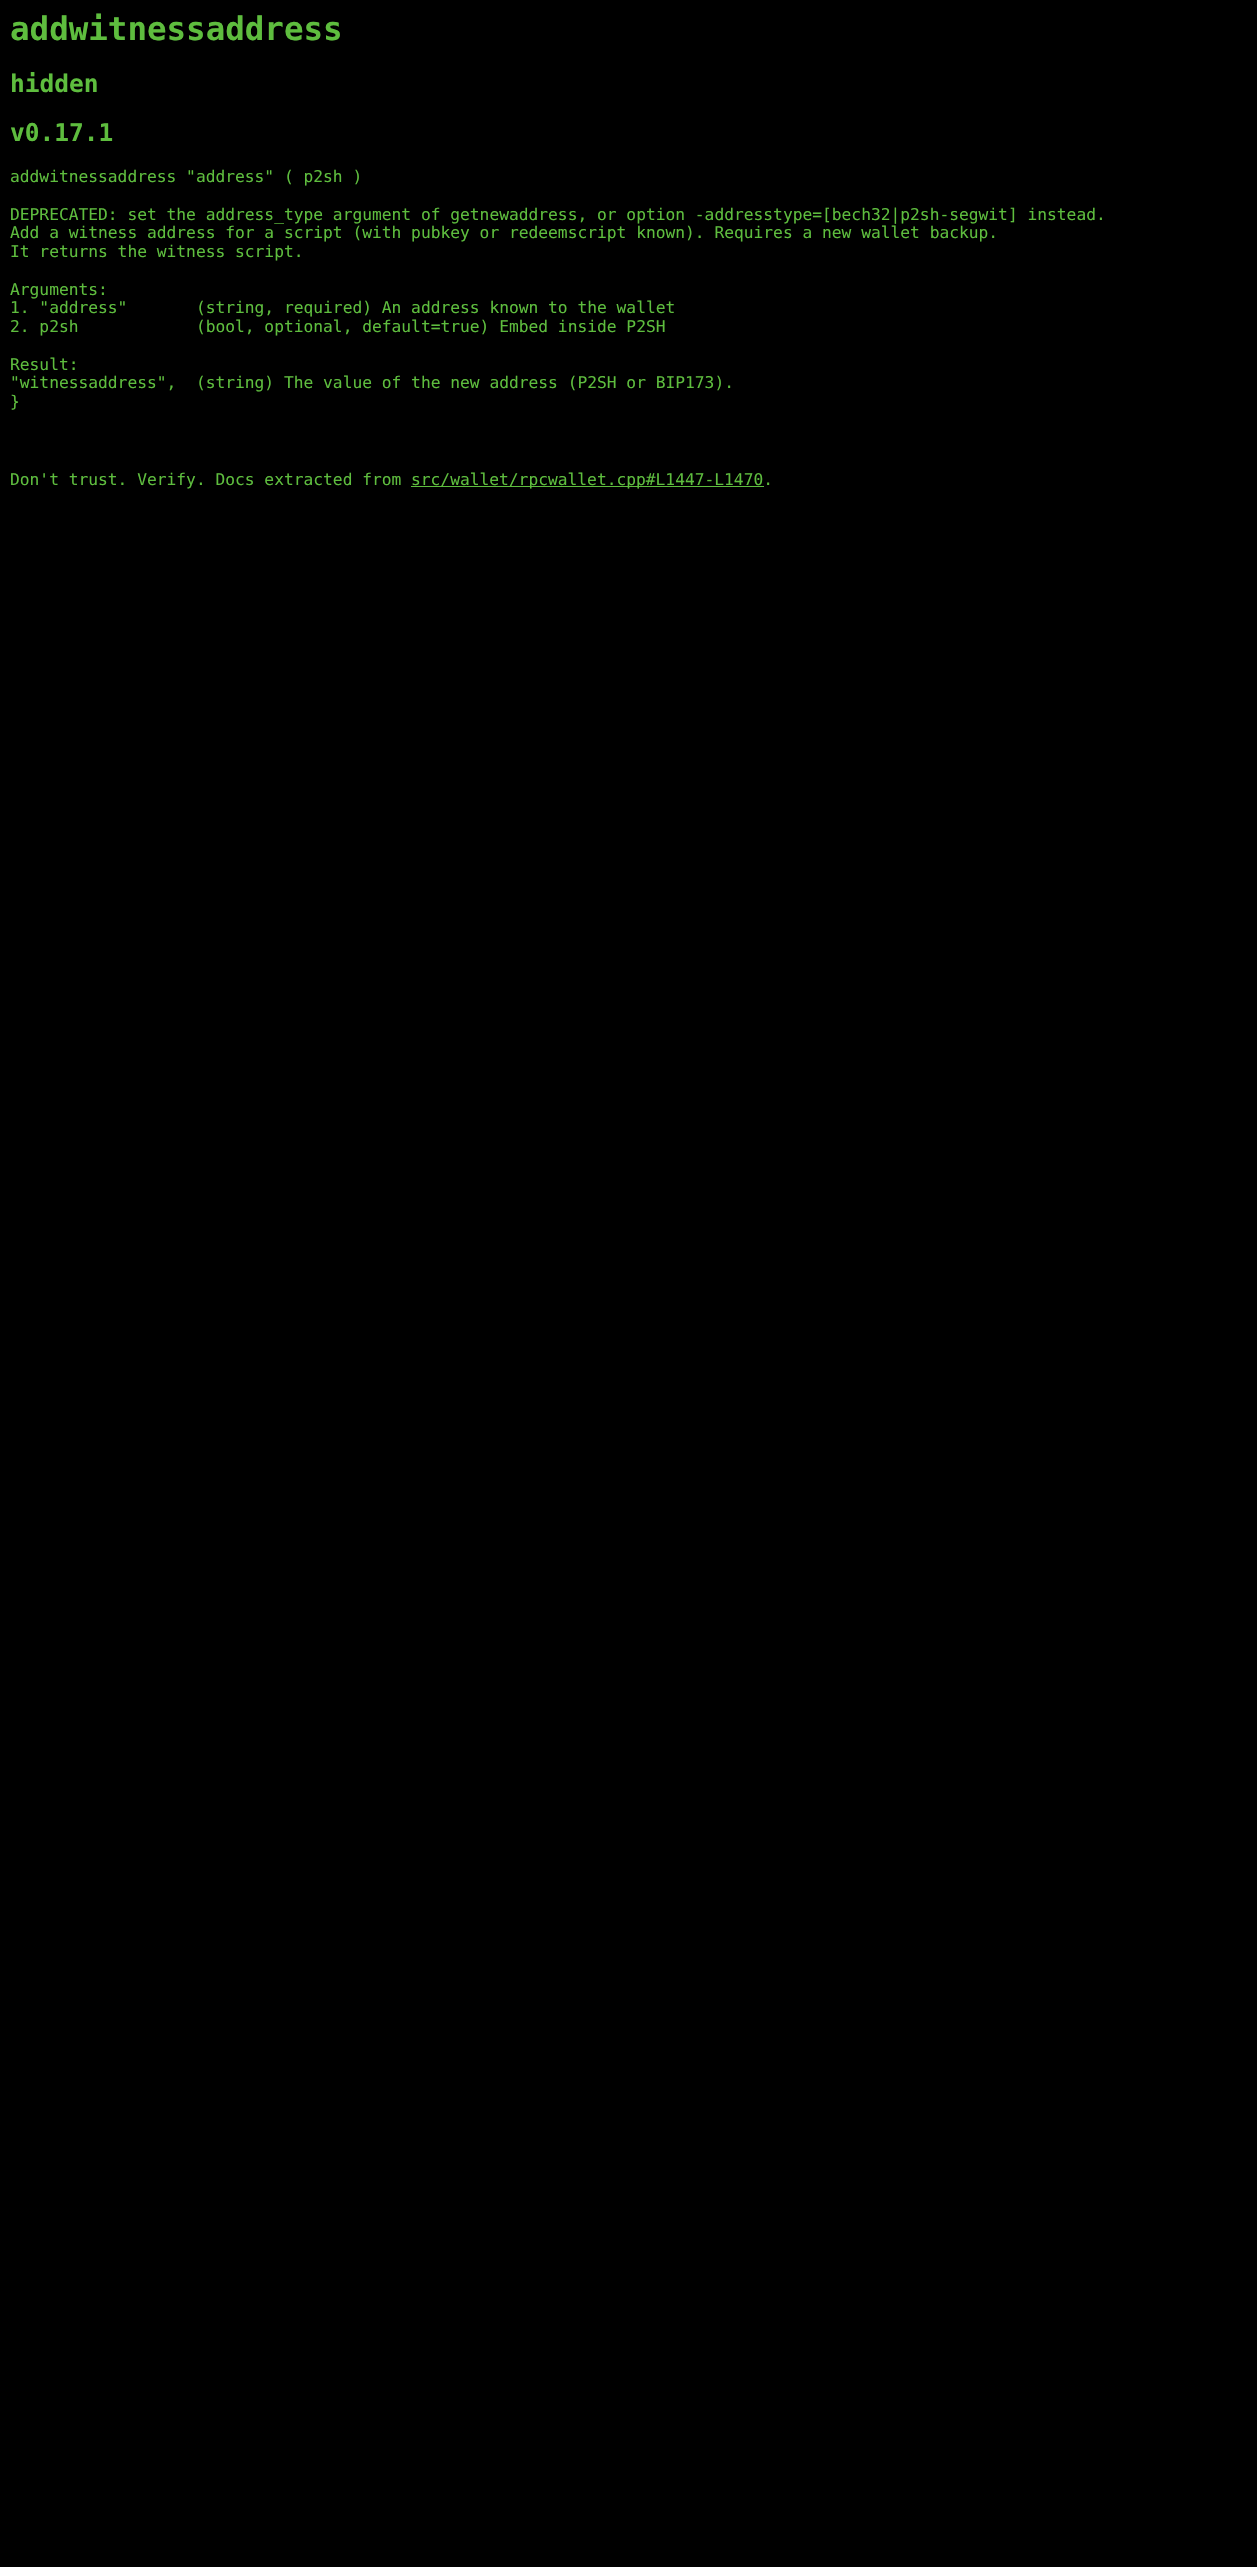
void draw(SkCanvas* c) {
SkPaint p;
p.setAntiAlias(true);
auto F=[&](const char* family, int weight, float size, bool italic = false){SkFontStyle style(weight, SkFontStyle::kNormal_Width,italic ? SkFontStyle::kItalic_Slant : SkFontStyle::kUpright_Slant);SkFont result(fontMgr->matchFamilyStyle(family, style), size);result.setSubpixel(true);return result;};
auto T=[&](const char* s, float x, float y, const SkFont& font){c->drawString(s, x, y, font, p);};
auto R=[&](float x, float y, float w, float h){c->drawRect(SkRect::MakeXYWH(x, y, w, h), p);};
c->clear(0xff000000);
auto f1 = F("DejaVu Sans Mono",700,32.5);
p.setColor(0xff5ebd3e);
T("addwitnessaddress",10,40,f1);
auto f2 = F("DejaVu Sans Mono",700,24.5);
T("hidden",10,92,f2);
T("v0.17.1",10,141,f2);
auto f3 = F("DejaVu Sans Mono",400,16.25);
T("addwitnessaddress \"address\" ( p2sh )",10,182,f3);
T("DEPRECATED: set the address_type argument of getnewaddress, or option -addresstype=[bech32|p2sh-segwit] instead.",10,220,f3);
T("Add a witness address for a script (with pubkey or redeemscript known). Requires a new wallet backup.",10,238,f3);
T("It returns the witness script.",10,257,f3);
T("Arguments:",10,295,f3);
T("1. \"address\"       (string, required) An address known to the wallet",10,313,f3);
T("2. p2sh            (bool, optional, default=true) Embed inside P2SH",10,332,f3);
T("Result:",10,370,f3);
T("\"witnessaddress\",  (string) The value of the new address (P2SH or BIP173).",10,388,f3);
T("}",10,407,f3);
T("Don't trust. Verify. Docs extracted from",10,485,f3);
R(411,486,353,1);
T("src/wallet/rpcwallet.cpp#L1447-L1470.",411,485,f3);
}
